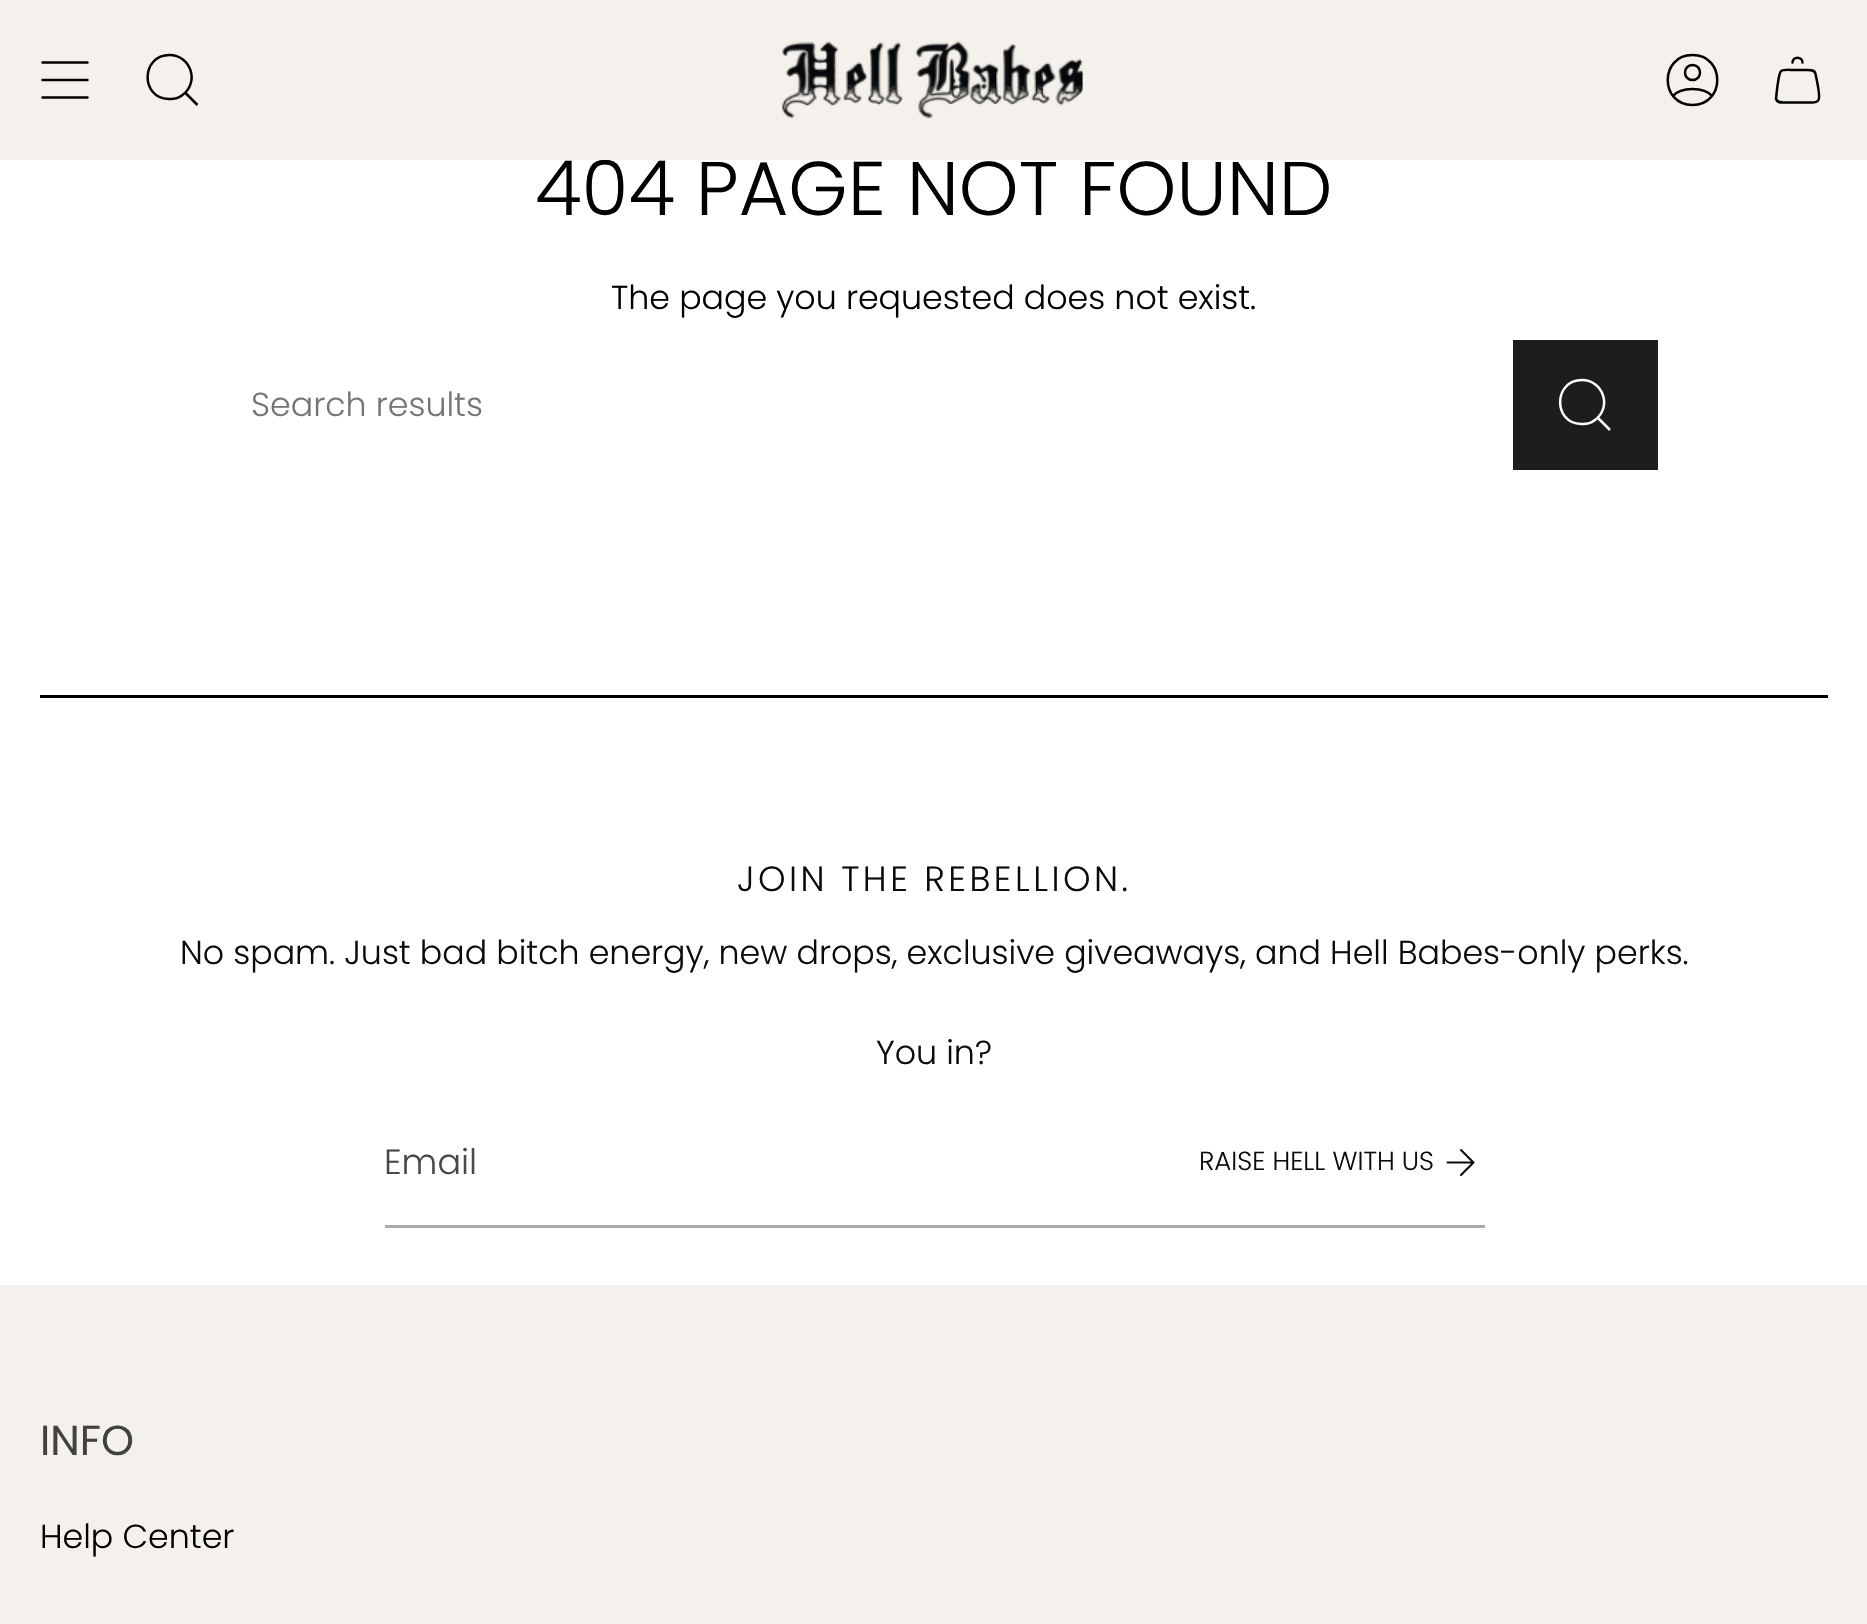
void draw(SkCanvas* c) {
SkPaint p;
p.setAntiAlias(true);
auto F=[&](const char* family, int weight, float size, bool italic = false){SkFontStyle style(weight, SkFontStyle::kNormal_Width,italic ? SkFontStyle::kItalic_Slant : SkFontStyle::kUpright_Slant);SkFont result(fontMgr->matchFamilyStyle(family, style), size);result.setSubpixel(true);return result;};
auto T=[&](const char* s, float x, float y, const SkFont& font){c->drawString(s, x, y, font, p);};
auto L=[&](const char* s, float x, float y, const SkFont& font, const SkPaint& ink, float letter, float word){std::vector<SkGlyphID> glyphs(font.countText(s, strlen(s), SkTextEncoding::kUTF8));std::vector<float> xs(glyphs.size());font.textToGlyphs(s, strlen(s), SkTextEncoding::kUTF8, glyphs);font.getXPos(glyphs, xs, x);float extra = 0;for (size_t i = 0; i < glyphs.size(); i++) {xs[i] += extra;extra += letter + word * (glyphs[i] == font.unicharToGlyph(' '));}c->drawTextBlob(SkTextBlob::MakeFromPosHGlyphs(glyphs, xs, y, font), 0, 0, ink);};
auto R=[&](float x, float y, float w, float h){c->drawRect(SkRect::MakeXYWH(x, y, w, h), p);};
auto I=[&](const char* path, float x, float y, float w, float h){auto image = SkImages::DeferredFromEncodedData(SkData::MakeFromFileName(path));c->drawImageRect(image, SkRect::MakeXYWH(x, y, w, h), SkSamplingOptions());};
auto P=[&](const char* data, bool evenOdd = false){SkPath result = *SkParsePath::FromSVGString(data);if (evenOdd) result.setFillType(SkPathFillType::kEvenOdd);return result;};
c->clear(0xffffffff);
auto f1 = F("Poppins",300,76);
p.setColor(0xff000000);
T("404 PAGE NOT FOUND",535,215,f1);
p.setColor(0xfff4f0eb);
R(0,0,1867,160);
p.setStroke(true);
p.setStrokeWidth(2.5);
p.setStrokeCap(SkPaint::kRound_Cap);
p.setStrokeJoin(SkPaint::kRound_Join);
p.setColor(0xff000000);
c->drawPath(P("M42.5 62.5h45m-45 17.5h45m-45 17.5h45"),p);
p.setStrokeCap(SkPaint::kButt_Cap);
p.setStrokeJoin(SkPaint::kMiter_Join);
c->drawPath(P("M169.5 55c21 0 30.5 27 13 40c-4 3-9 4.5-14 4c-28.5-1-27.5-44 1-44zm16 38l12 12"),p);
I("1.png",782,41,301,78);
p.setStrokeCap(SkPaint::kRound_Cap);
p.setStrokeJoin(SkPaint::kRound_Join);
c->drawPath(P("M1692.5 55c-33 0-33 50 0 50c33 0 33-50 0-50zm-19.5 41c7.5-9.5 31.5-9.5 39 0m-19.5-16c10 0 10-15 0-15c-10 0-10 15 0 15z"),p);
c->drawPath(P("M1815.5 74c1 4.5 5 22.5 3 26c-2 3.5-6.5 2.5-10 2.5h-22c-4 0-9.5 1-10.5-4l1.5-13c3-18.5 1-15.5 20-15.5h9c3.5 0 8.5-.5 9 4zm-13-11.5c0-6.5-10-6.5-10 0"),p);
auto f2 = F("Poppins",300,33.25);
p.setStroke(false);
T("The page you requested does not exist.",611,309,f2);
p.setColor(0xff757575);
T("Search results",251,416,f2);
p.setColor(0xff1d1d1d);
R(1513,340,145,130);
p.setStroke(true);
p.setStrokeCap(SkPaint::kButt_Cap);
p.setStrokeJoin(SkPaint::kMiter_Join);
p.setColor(0xffffffff);
c->drawPath(P("M1582 380c21 0 30.5 27 13 40c-4 3-9 4.5-14 4c-28.5-1-27.5-44 1-44zm16 38l12 12"),p);
p.setStroke(false);
p.setColor(0xff000000);
R(40,695,1788,3);
auto f3 = F("Poppins",300,35);
p.setColor(0xff0b0b0b);
L("JOIN THE REBELLION.",737,891,f3,p,3.5,0);
T("No spam. Just bad bitch energy, new drops, exclusive giveaways, and Hell Babes-only perks.",180,964,f2);
T("You in?",876,1064,f2);
p.setColor(0xffaaaaaa);
R(385,1225,1100,3);
p.setColor(0xff484848);
T("Email",384,1174,f3);
auto f4 = F("Poppins",300,26.1);
p.setColor(0xff0b0b0b);
T("RAISE HELL WITH US",1199,1170,f4);
p.setStroke(true);
p.setStrokeWidth(2.1);
p.setStrokeCap(SkPaint::kRound_Cap);
p.setStrokeJoin(SkPaint::kRound_Join);
c->drawPath(P("M1447.5 1162.5h26m0 0l-12.5-12.5m12.5 12.5l-12.5 12.5"),p);
p.setStroke(false);
p.setColor(0xfff4f0eb);
R(0,1285,1867,339);
auto f5 = F("Poppins",400,42);
p.setColor(0xff414141);
T("INFO",40,1455,f5);
p.setColor(0xff000000);
T("Help Center",40,1548,f2);
}
